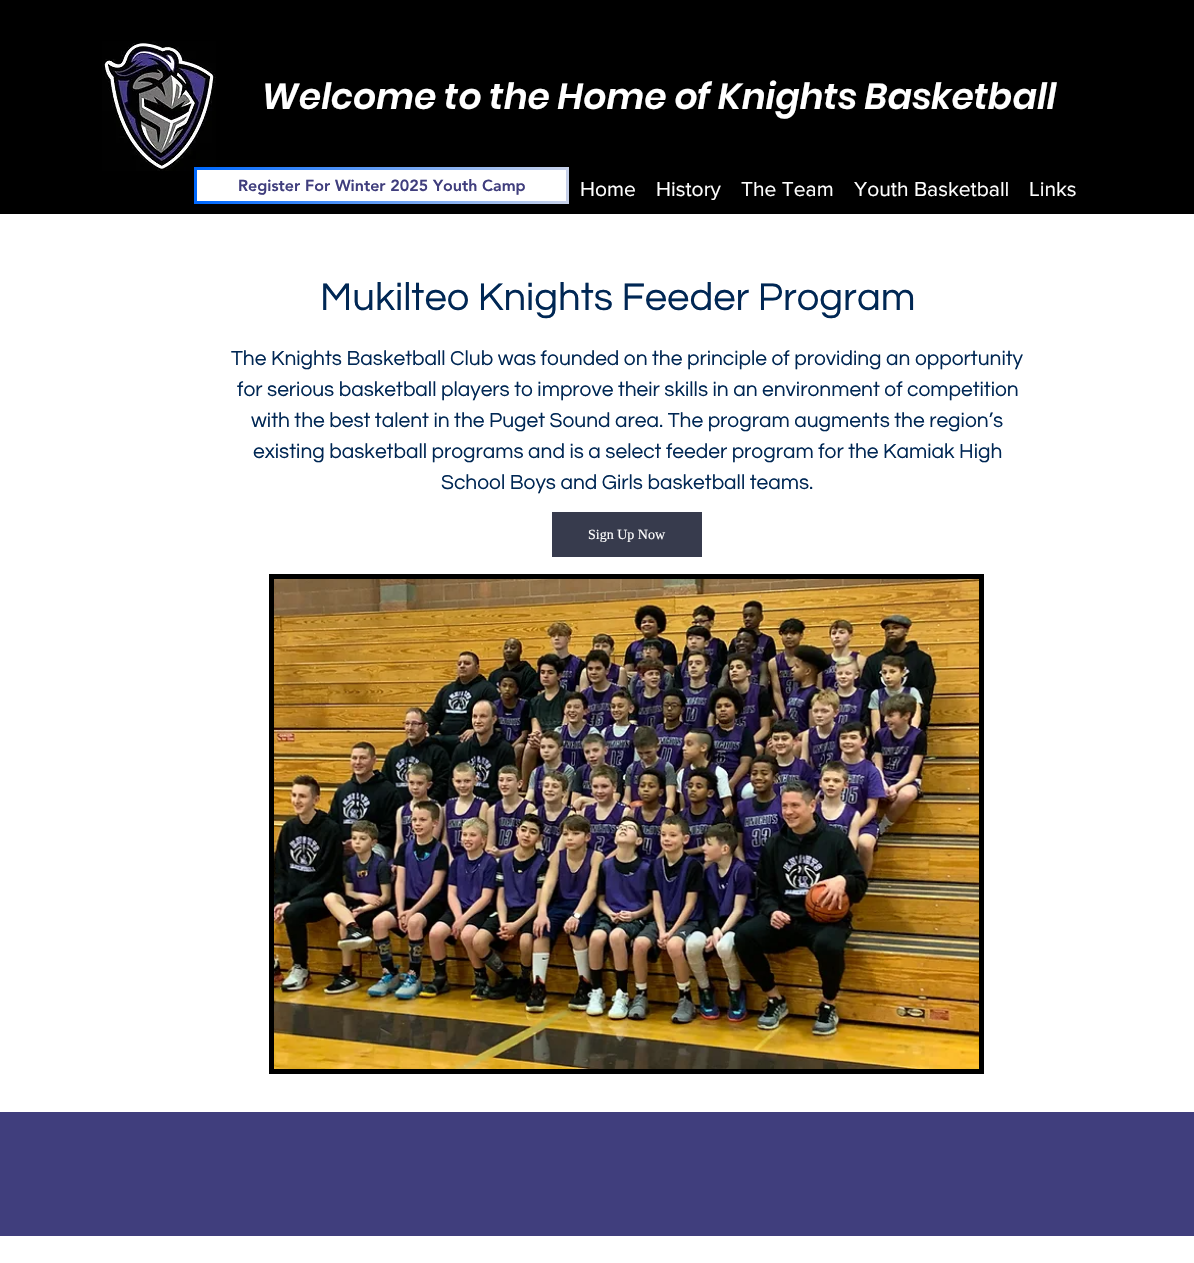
void draw(SkCanvas* c) {
SkPaint p;
p.setAntiAlias(true);
auto F=[&](const char* family, int weight, float size, bool italic = false){SkFontStyle style(weight, SkFontStyle::kNormal_Width,italic ? SkFontStyle::kItalic_Slant : SkFontStyle::kUpright_Slant);SkFont result(fontMgr->matchFamilyStyle(family, style), size);result.setSubpixel(true);return result;};
auto T=[&](const char* s, float x, float y, const SkFont& font){c->drawString(s, x, y, font, p);};
auto R=[&](float x, float y, float w, float h){c->drawRect(SkRect::MakeXYWH(x, y, w, h), p);};
auto I=[&](const char* path, float x, float y, float w, float h){auto image = SkImages::DeferredFromEncodedData(SkData::MakeFromFileName(path));c->drawImageRect(image, SkRect::MakeXYWH(x, y, w, h), SkSamplingOptions());};
c->clear(0xffffffff);
p.setColor(0xff000000);
R(0,0,1194,214);
I("1.png",102,41,114,130);
auto f1 = F("Poppins",600,36,true);
p.setColor(0xffffffff);
T("Welcome to the Home of Knights Basketball",262,109,f1);
R(197,170,369,31);
I("2.png",194,167,375,37);
auto f2 = F("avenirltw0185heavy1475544",900,16);
p.setColor(0xff403e7d);
T("Register For Winter 2025 Youth Camp",238,191,f2);
auto f3 = F("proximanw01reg",400,21);
p.setColor(0xffffffff);
T("Home",580,196,f3);
T("History",656,196,f3);
T("The Team",741,196,f3);
T("Youth Basketball",854,196,f3);
T("Links",1029,196,f3);
auto f4 = F("Questrial",400,40);
p.setColor(0xff002754);
T("Mukilteo Knights Feeder Program",320,310,f4);
auto f5 = F("Questrial",400,21);
T("The Knights Basketball Club was founded on the principle of providing an opportunity",231,365,f5);
T("for serious basketball players to improve their skills in an environment of competition",237,396,f5);
T("with the best talent in the Puget Sound area. The program augments the region’s",251,427,f5);
T("existing basketball programs and is a select feeder program for the Kamiak High",253,458,f5);
T("School Boys and Girls basketball teams.",441,489,f5);
p.setColor(0xff373b4d);
R(552,512,150,45);
auto f6 = F("Liberation Serif",400,14);
p.setColor(0xffffffff);
T("Sign Up Now",588,539,f6);
p.setColor(0xff000000);
R(269,574,715,500);
I("3.png",274,579,705,490);
p.setColor(0xff403e7d);
R(0,1112,1194,124);
}
